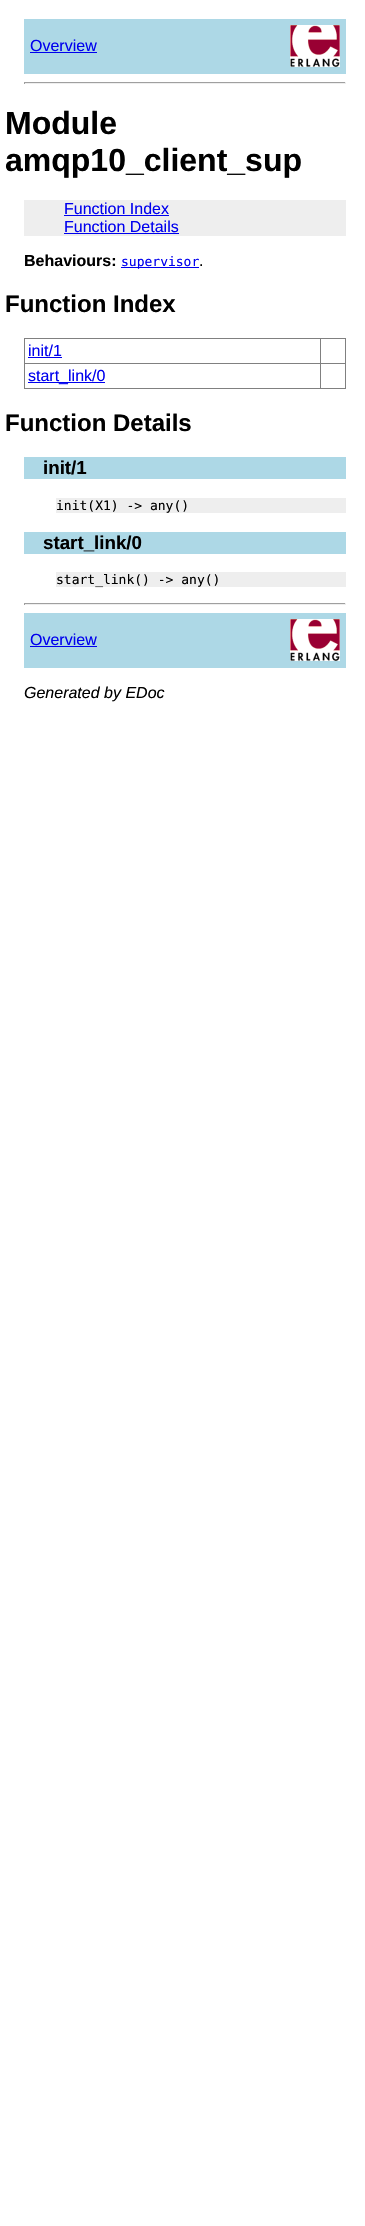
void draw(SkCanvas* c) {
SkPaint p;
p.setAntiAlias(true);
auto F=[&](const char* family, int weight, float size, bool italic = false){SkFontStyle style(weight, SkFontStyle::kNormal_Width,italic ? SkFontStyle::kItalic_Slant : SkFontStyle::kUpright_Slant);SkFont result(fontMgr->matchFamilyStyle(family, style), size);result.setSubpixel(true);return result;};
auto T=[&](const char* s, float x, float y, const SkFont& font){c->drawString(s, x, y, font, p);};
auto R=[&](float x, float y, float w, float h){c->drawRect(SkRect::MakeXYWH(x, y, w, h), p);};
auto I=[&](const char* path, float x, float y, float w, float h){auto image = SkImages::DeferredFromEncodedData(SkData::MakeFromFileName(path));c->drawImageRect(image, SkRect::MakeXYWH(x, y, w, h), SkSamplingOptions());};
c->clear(0xffffffff);
p.setColor(0xffadd8e6);
R(24,19,322,55);
auto f1 = F("Liberation Sans",400,16);
p.setColor(0xff0000ee);
T("Overview",30,51,f1);
R(30,52,67,1);
I("1.png",290,25,50,42);
p.setColor(0xff9f9f9f);
R(24,82,322,1);
p.setColor(0xffeeeeee);
R(345,82,1,2);
R(24,83,322,1);
p.setColor(0xff9f9f9f);
R(24,82,1,2);
auto f2 = F("Liberation Sans",700,32);
p.setColor(0xff000000);
T("Module",5,134,f2);
T("amqp10_client_sup",5,171,f2);
p.setColor(0xffeeeeee);
R(24,200,322,36);
p.setColor(0xff0000ee);
T("Function Index",64,214,f1);
R(64,215,105,1);
T("Function Details",64,232,f1);
R(64,233,115,1);
auto f3 = F("Liberation Sans",700,16);
p.setColor(0xff000000);
T("Behaviours:",24,266,f3);
p.setColor(0xff0000ee);
R(121,267,78,1);
auto f4 = F("DejaVu Sans Mono",400,13);
T("supervisor",121,266,f4);
p.setColor(0xff000000);
T(".",199,266,f1);
auto f5 = F("Liberation Sans",700,24);
T("Function Index",5,312,f5);
p.setColor(0xff808080);
R(24,338,322,1);
R(345,338,1,51);
R(24,388,322,1);
R(24,338,1,51);
p.setColor(0xff0000ee);
T("init/1",28,356,f1);
R(28,357,34,1);
p.setColor(0xff808080);
R(320,363,26,1);
R(320,363,1,26);
R(24,363,297,1);
R(320,338,1,26);
p.setColor(0xff0000ee);
R(28,382,77,1);
T("start_link/0",28,381,f1);
p.setColor(0xff000000);
T("Function Details",5,431,f5);
p.setColor(0xffadd8e6);
R(24,457,322,22);
auto f6 = F("Liberation Sans",700,18.75);
p.setColor(0xff000000);
T("init/1",43,474,f6);
p.setColor(0xffeeeeee);
R(56,498,290,15);
p.setColor(0xff000000);
T("init(X1) -> any()",56,510,f4);
p.setColor(0xffadd8e6);
R(24,532,322,22);
p.setColor(0xff000000);
T("start_link/0",43,549,f6);
p.setColor(0xffeeeeee);
R(56,572,290,15);
p.setColor(0xff000000);
T("start_link() -> any()",56,584,f4);
p.setColor(0xff9f9f9f);
R(24,603,322,1);
p.setColor(0xffeeeeee);
R(345,603,1,2);
R(24,604,322,1);
p.setColor(0xff9f9f9f);
R(24,603,1,2);
p.setColor(0xffadd8e6);
R(24,613,322,55);
p.setColor(0xff0000ee);
T("Overview",30,645,f1);
R(30,646,67,1);
I("1.png",290,619,50,42);
auto f7 = F("Liberation Sans",400,16,true);
p.setColor(0xff000000);
T("Generated by EDoc",24,698,f7);
}
